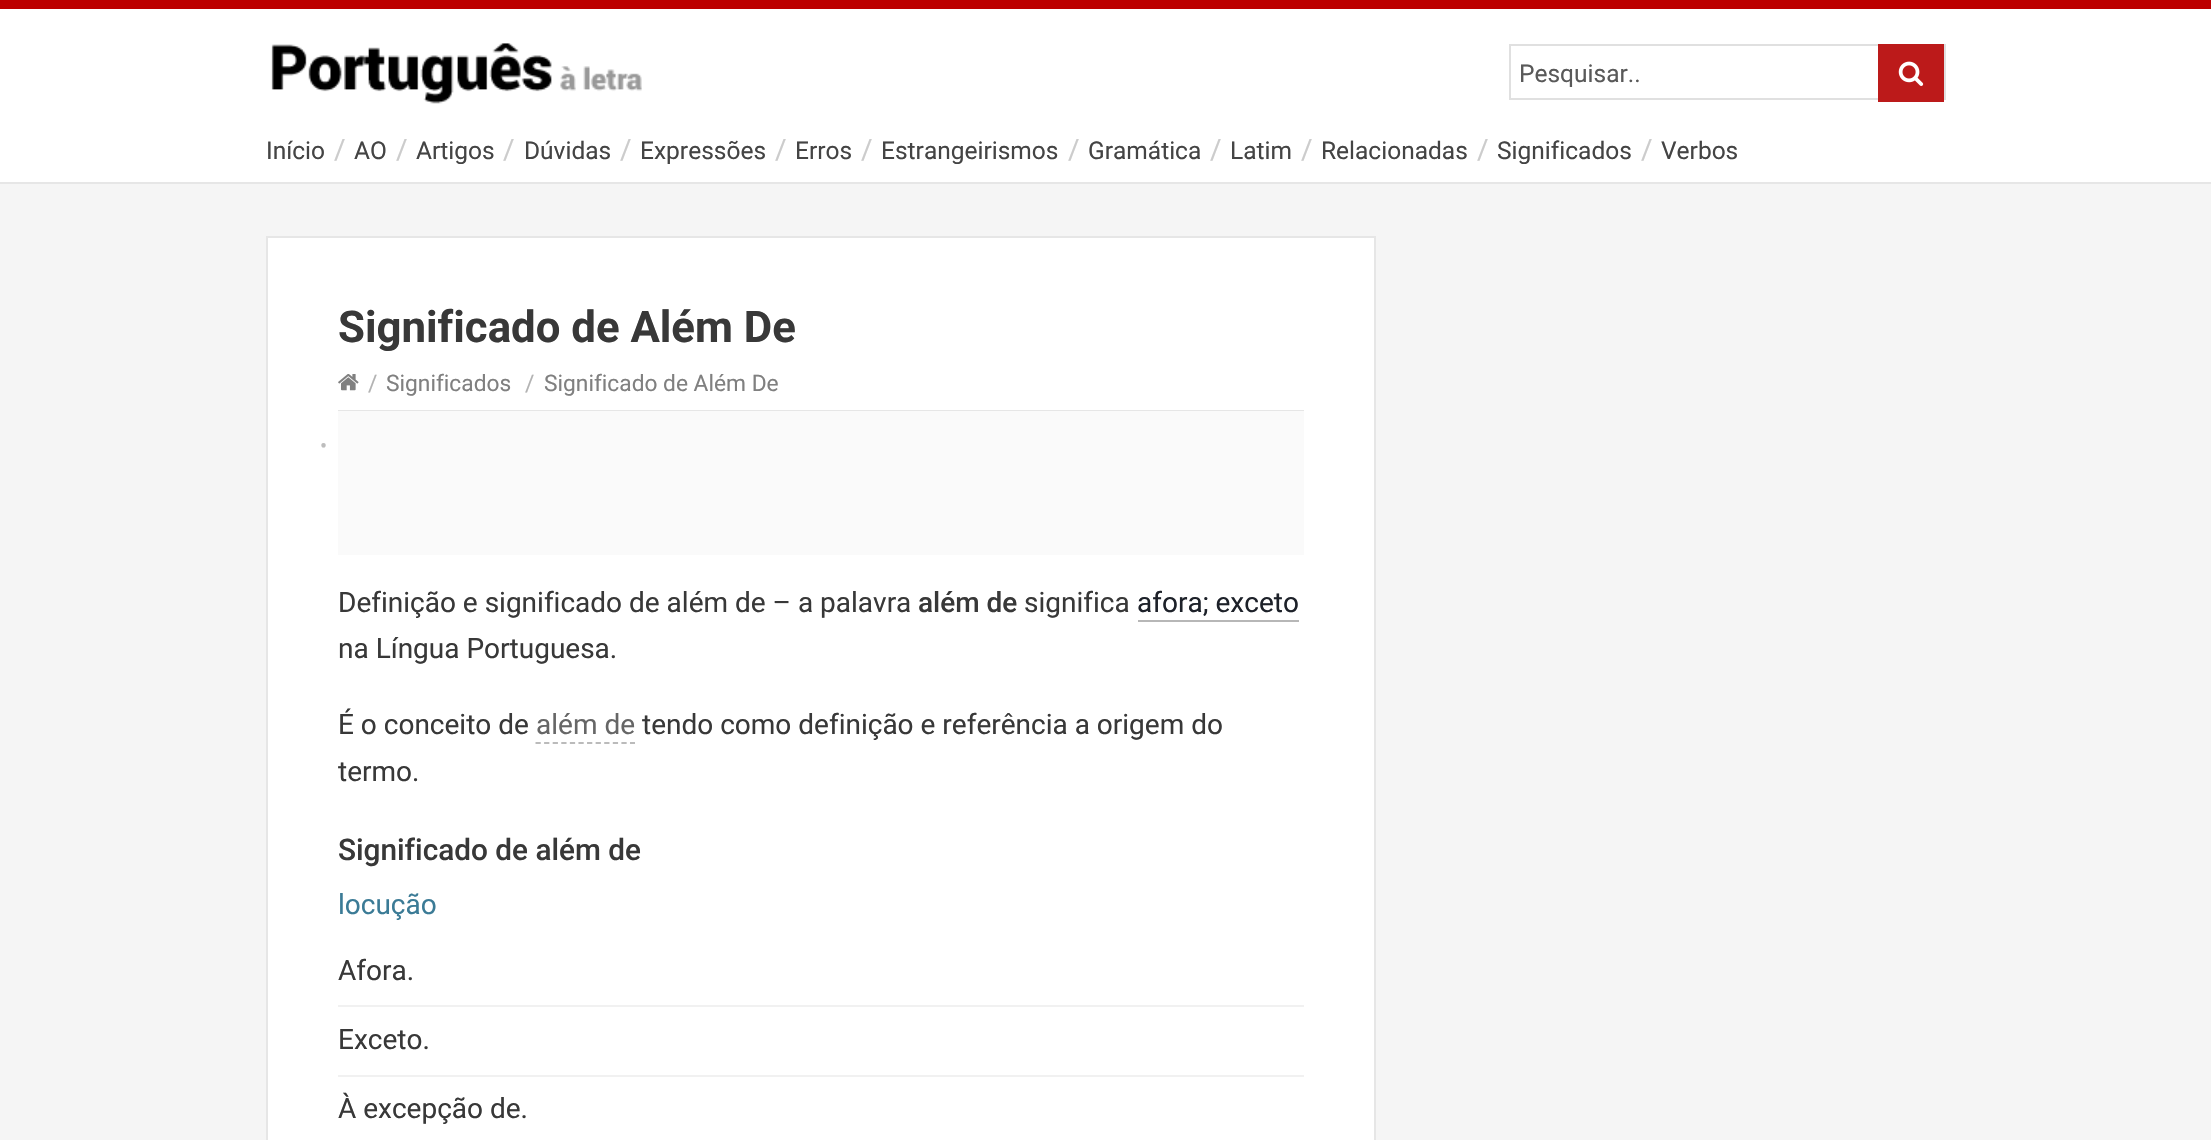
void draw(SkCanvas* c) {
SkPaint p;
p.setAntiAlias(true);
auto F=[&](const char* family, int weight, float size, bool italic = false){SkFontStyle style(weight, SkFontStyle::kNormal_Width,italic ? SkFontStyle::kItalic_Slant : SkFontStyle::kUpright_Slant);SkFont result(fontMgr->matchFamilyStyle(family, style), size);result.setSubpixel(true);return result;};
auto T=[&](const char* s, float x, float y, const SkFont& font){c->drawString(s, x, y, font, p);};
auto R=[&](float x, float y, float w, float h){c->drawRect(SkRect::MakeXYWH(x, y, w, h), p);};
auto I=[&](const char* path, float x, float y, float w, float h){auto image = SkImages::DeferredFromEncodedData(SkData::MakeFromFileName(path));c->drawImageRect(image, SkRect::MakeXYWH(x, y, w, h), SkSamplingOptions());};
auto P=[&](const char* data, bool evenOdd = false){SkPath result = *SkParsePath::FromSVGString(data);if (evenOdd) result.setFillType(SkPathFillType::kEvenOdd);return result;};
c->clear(0xffffffff);
p.setColor(0xffbc0000);
R(0,0,2211,9);
p.setColor(0xffe6e6e6);
R(0,182,2211,2);
I("1.png",271,43,371,61);
p.setStroke(true);
p.setStrokeWidth(2);
p.setColor(0xffe0e0e0);
c->drawRect(SkRect::MakeXYWH(1510,45,435,54),p);
auto f1 = F("Roboto",400,24.5);
p.setStroke(false);
p.setColor(0xff595959);
T("Pesquisar..",1519,82,f1);
p.setColor(0xffbc1a1a);
R(1878,44,66,58);
I("2.png",1898,61,26,25);
p.setColor(0xff444444);
T("Início",266,159,f1);
auto f2 = F("Roboto",400,28);
p.setColor(0xffcccccc);
T("/",334,159,f2);
p.setColor(0xff444444);
T("AO",354,159,f1);
p.setColor(0xffcccccc);
T("/",396,159,f2);
p.setColor(0xff444444);
T("Artigos",416,159,f1);
p.setColor(0xffcccccc);
T("/",503,159,f2);
p.setColor(0xff444444);
T("Dúvidas",524,159,f1);
p.setColor(0xffcccccc);
T("/",620,159,f2);
p.setColor(0xff444444);
T("Expressões",640,159,f1);
p.setColor(0xffcccccc);
T("/",775,159,f2);
p.setColor(0xff444444);
T("Erros",795,159,f1);
p.setColor(0xffcccccc);
T("/",861,159,f2);
p.setColor(0xff444444);
T("Estrangeirismos",881,159,f1);
p.setColor(0xffcccccc);
T("/",1068,159,f2);
p.setColor(0xff444444);
T("Gramática",1088,159,f1);
p.setColor(0xffcccccc);
T("/",1210,159,f2);
p.setColor(0xff444444);
T("Latim",1230,159,f1);
p.setColor(0xffcccccc);
T("/",1301,159,f2);
p.setColor(0xff444444);
T("Relacionadas",1321,159,f1);
p.setColor(0xffcccccc);
T("/",1477,159,f2);
p.setColor(0xff444444);
T("Significados",1497,159,f1);
p.setColor(0xffcccccc);
T("/",1641,159,f2);
p.setColor(0xff444444);
T("Verbos",1661,159,f1);
p.setColor(0xfff5f5f5);
R(0,184,2211,956);
p.setColor(0xffffffff);
c->drawRect(SkRect::MakeXYWH(267,237,1108,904),p);
p.setStroke(true);
p.setColor(0xffe6e6e6);
c->drawRect(SkRect::MakeXYWH(267,237,1108,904),p);
p.setStroke(false);
R(338,410,966,1);
auto f3 = F("Roboto",700,43.75);
p.setColor(0xff383838);
T("Significado de Além De",338,342,f3);
I("3.png",338,374,21,17);
auto f4 = F("Roboto",400,22.75);
p.setColor(0xffb3b3b3);
T("/",368,391,f4);
p.setColor(0xff808080);
T("Significados",386,391,f4);
p.setColor(0xffb3b3b3);
T("/",525,391,f4);
p.setColor(0xff808080);
T("Significado de Além De",544,391,f4);
p.setColor(0xfffafafa);
R(338,411,966,144);
p.setColor(0xfff1f1f1);
R(338,1005,966,2);
auto f5 = F("Roboto",400,21);
p.setColor(0xffbdbdbd);
T("•",320,453,f5);
p.setColor(0xff383838);
T("Afora.",338,980,f2);
T("Definição e significado de além de – a palavra",338,612,f2);
auto f6 = F("Roboto",500,28);
T("além de",918,612,f6);
T("significa",1024,612,f2);
p.setColor(0xff1d2129);
T("afora; exceto",1137,612,f2);
p.setColor(0xffb7b7b7);
R(1138,620,161,2);
p.setColor(0xff383838);
T("na Língua Portuguesa.",338,658,f2);
T("É o conceito de",338,734,f2);
p.setColor(0xff666666);
T("além de",536,734,f2);
p.setStroke(true);
p.setStrokeWidth(1.8);
p.setColor(0xffbbbbbb);
p.setPathEffect(SkDashPathEffect::Make({{5.25f,3.34f}}, 0));
c->drawPath(P("M535.5 743h99.5"),p);
p.setPathEffect(nullptr);
p.setStroke(false);
p.setColor(0xff383838);
T("tendo como definição e referência a origem do",642,734,f2);
T("termo.",338,781,f2);
auto f7 = F("Roboto",500,29.75);
T("Significado de além de",338,860,f7);
p.setColor(0xff3b7b96);
T("locução",338,914,f2);
p.setColor(0xfff1f1f1);
R(338,1075,966,2);
p.setColor(0xff383838);
T("Exceto.",338,1049,f2);
T("À excepção de.",338,1118,f2);
}
